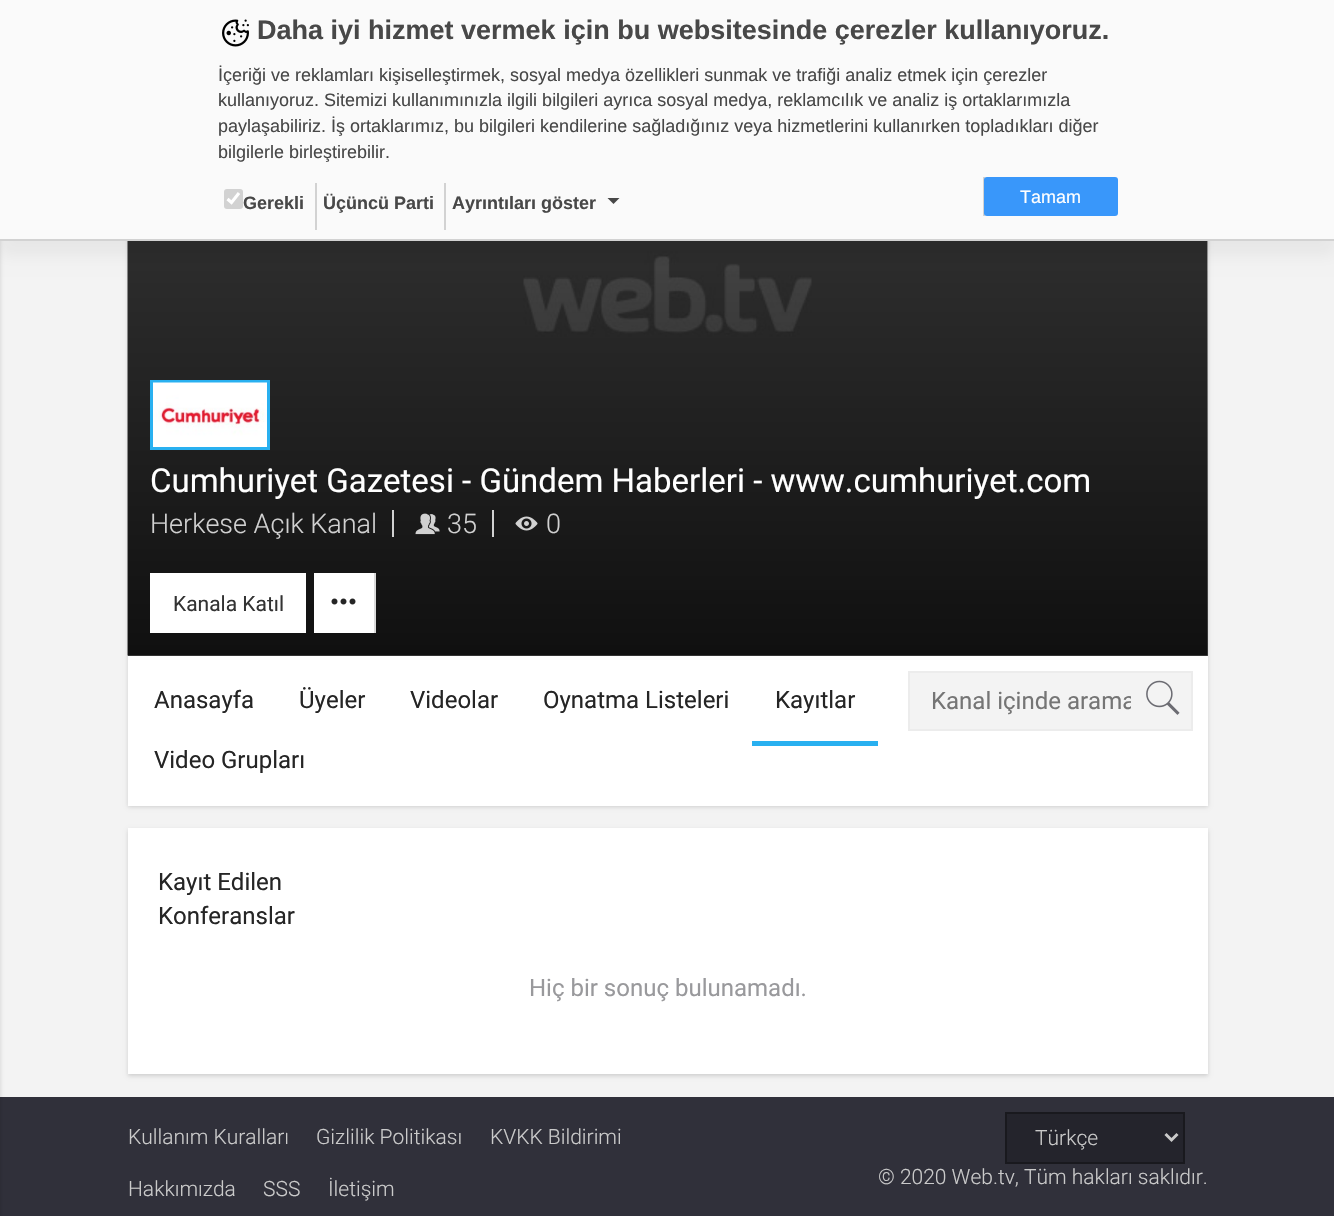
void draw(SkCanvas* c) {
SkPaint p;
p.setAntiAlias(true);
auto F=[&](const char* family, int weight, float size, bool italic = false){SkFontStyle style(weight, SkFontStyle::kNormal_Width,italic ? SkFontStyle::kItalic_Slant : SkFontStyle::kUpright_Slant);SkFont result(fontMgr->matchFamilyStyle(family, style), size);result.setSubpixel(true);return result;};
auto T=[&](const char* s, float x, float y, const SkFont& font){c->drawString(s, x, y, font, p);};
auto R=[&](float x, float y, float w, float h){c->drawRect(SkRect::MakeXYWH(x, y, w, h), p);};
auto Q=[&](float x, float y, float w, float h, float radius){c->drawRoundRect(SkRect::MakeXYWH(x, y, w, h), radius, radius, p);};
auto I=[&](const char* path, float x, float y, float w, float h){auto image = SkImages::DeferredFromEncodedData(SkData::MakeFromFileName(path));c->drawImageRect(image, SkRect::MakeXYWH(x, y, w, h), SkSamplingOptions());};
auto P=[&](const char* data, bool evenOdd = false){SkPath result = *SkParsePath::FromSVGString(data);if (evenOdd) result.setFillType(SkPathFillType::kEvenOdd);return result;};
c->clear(0xfff3f3f3);
p.setColor(0x26000000);
p.setMaskFilter(SkMaskFilter::MakeBlur(kNormal_SkBlurStyle, 2));
c->drawRect(SkRect::MakeXYWH(128,126,1080,681),p);
p.setMaskFilter(nullptr);
p.setColor(0xffffffff);
R(128,241,1080,565);
I("2.png",127,241,1081,415);
{
const SkColor colors[] = {0x00000000,0xa6000000};
const float stops[] = {0,1};
const SkPoint ends[] = {{668,258}, {668,656}};
p.setShader(SkGradientShader::MakeLinear(ends, colors, stops, 2, SkTileMode::kClamp));
p.setAlpha(255);
}
R(128,271,1080,385);
p.setShader(nullptr);
p.setColor(0x0d000000);
p.setMaskFilter(SkMaskFilter::MakeBlur(kNormal_SkBlurStyle, 7.5));
c->drawRect(SkRect::MakeXYWH(0,15,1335,240),p);
p.setMaskFilter(nullptr);
p.setColor(0xff30303a);
R(0,1097,1334,119);
p.setColor(0x26000000);
p.setMaskFilter(SkMaskFilter::MakeBlur(kNormal_SkBlurStyle, 2));
c->drawRect(SkRect::MakeXYWH(-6,2,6,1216),p);
p.setMaskFilter(nullptr);
p.setColor(0xfffafafa);
R(0,0,1334,239);
p.setColor(0xffd2d2d2);
R(0,239,1334,2);
I("1.png",222,19,27,28);
auto f1 = F("Liberation Sans",700,27);
p.setColor(0xff484848);
T("Daha iyi hizmet vermek için bu websitesinde çerezler kullanıyoruz.",257,39,f1);
auto f2 = F("Liberation Sans",400,18);
T("İçeriği ve reklamları kişiselleştirmek, sosyal medya özellikleri sunmak ve trafiği analiz etmek için çerezler",218,81,f2);
T("kullanıyoruz. Sitemizi kullanımınızla ilgili bilgileri ayrıca sosyal medya, reklamcılık ve analiz iş ortaklarımızla",218,106,f2);
T("paylaşabiliriz. İş ortaklarımız, bu bilgileri kendilerine sağladığınız veya hizmetlerini kullanırken topladıkları diğer",218,132,f2);
T("bilgilerle birleştirebilir.",218,158,f2);
p.setColor(0xffd2d2d2);
Q(224,189,19,20,3);
p.setStroke(true);
p.setStrokeWidth(3.1);
p.setColor(0xffffffff);
c->drawPath(P("M227.5 199l4 3.5l7.5-9.5"),p);
auto f3 = F("Liberation Sans",700,18);
p.setStroke(false);
p.setColor(0xff484848);
T("Gerekli",243,209,f3);
p.setColor(0xffd2d2d2);
R(315,183,2,47);
p.setColor(0xff484848);
T("Üçüncü Parti",323,209,f3);
p.setColor(0xffd2d2d2);
R(444,183,2,47);
p.setColor(0xff484848);
T("Ayrıntıları göster",452,209,f3);
c->drawPath(P("M607.5 198h12l-6 6z"),p);
p.setColor(0xffd2d2d2);
R(983,177,2,39);
p.setColor(0xff3997fa);
Q(984,177,134,39,3);
p.setColor(0xffffffff);
T("Tamam",1020,203,f2);
p.setStroke(true);
p.setStrokeWidth(3);
p.setColor(0xff29b0f0);
c->drawRect(SkRect::MakeXYWH(151.5,381.5,117,67),p);
I("3.png",153,382,114,65);
auto f4 = F("Roboto",400,33);
p.setStroke(false);
p.setColor(0xffffffff);
T("Cumhuriyet Gazetesi - Gündem Haberleri - www.cumhuriyet.com",150,492,f4);
p.setColor(0xffd1d1d1);
R(392,510,2,27);
auto f5 = F("Roboto",300,27);
T("Herkese Açık Kanal",150,533,f5);
R(492,510,2,27);
I("4.png",415,513,25,22);
T("35",447,533,f5);
I("5.png",515,516,23,15);
T("0",546,533,f5);
p.setColor(0xffffffff);
R(150,573,156,60);
auto f6 = F("Roboto",400,21);
p.setColor(0xff333333);
T("Kanala Katıl",173,611,f6);
p.setColor(0xffdadada);
R(374,573,2,60);
p.setColor(0xffffffff);
R(314,573,60,60);
I("6.png",331,598,25,7);
auto f7 = F("Roboto",400,24);
p.setColor(0xff252525);
T("Anasayfa",154,708,f7);
T("Üyeler",299,708,f7);
T("Videolar",410,708,f7);
T("Oynatma Listeleri",543,708,f7);
T("Kayıtlar",775,708,f7);
p.setColor(0xff29b0f0);
R(752,741,126,5);
p.setColor(0xff252525);
T("Video Grupları",154,768,f7);
p.setColor(0xfff3f3f3);
c->drawRect(SkRect::MakeXYWH(909,672,283,58),p);
p.setStroke(true);
p.setStrokeWidth(2);
p.setColor(0xffececec);
c->drawRect(SkRect::MakeXYWH(909,672,283,58),p);
c->save();
c->clipRect(SkRect::MakeXYWH(932,687,199,29));
p.setStroke(false);
p.setColor(0xff757575);
T("Kanal içinde arama",931,709,f7);
c->restore();
I("7.png",1146,680,34,35);
p.setColor(0x26000000);
p.setMaskFilter(SkMaskFilter::MakeBlur(kNormal_SkBlurStyle, 2));
c->drawRect(SkRect::MakeXYWH(128,830,1080,246),p);
p.setMaskFilter(nullptr);
p.setColor(0xffffffff);
R(128,828,1080,246);
p.setColor(0xff252525);
T("Kayıt Edilen",158,890,f7);
T("Konferanslar",158,924,f7);
p.setColor(0xff99999c);
T("Hiç bir sonuç bulunamadı.",529,996,f7);
auto f8 = F("Roboto",300,21);
p.setColor(0xffcacaca);
T("Kullanım Kuralları",128,1144,f8);
T("Gizlilik Politikası",316,1144,f8);
T("KVKK Bildirimi",490,1144,f8);
T("Hakkımızda",128,1196,f8);
T("SSS",263,1196,f8);
T("İletişim",328,1196,f8);
p.setColor(0xff24242c);
c->drawRect(SkRect::MakeXYWH(1006,1113,178,50),p);
p.setStroke(true);
p.setColor(0xff19191e);
c->drawRect(SkRect::MakeXYWH(1006,1113,178,50),p);
p.setStrokeWidth(3);
p.setColor(0xffcacaca);
c->drawPath(P("M1165.5 1134l6 6l6-6"),p);
p.setStroke(false);
T("Türkçe",1035,1145,f8);
T("© 2020 Web.tv, Tüm hakları saklıdır.",878,1184,f8);
}
